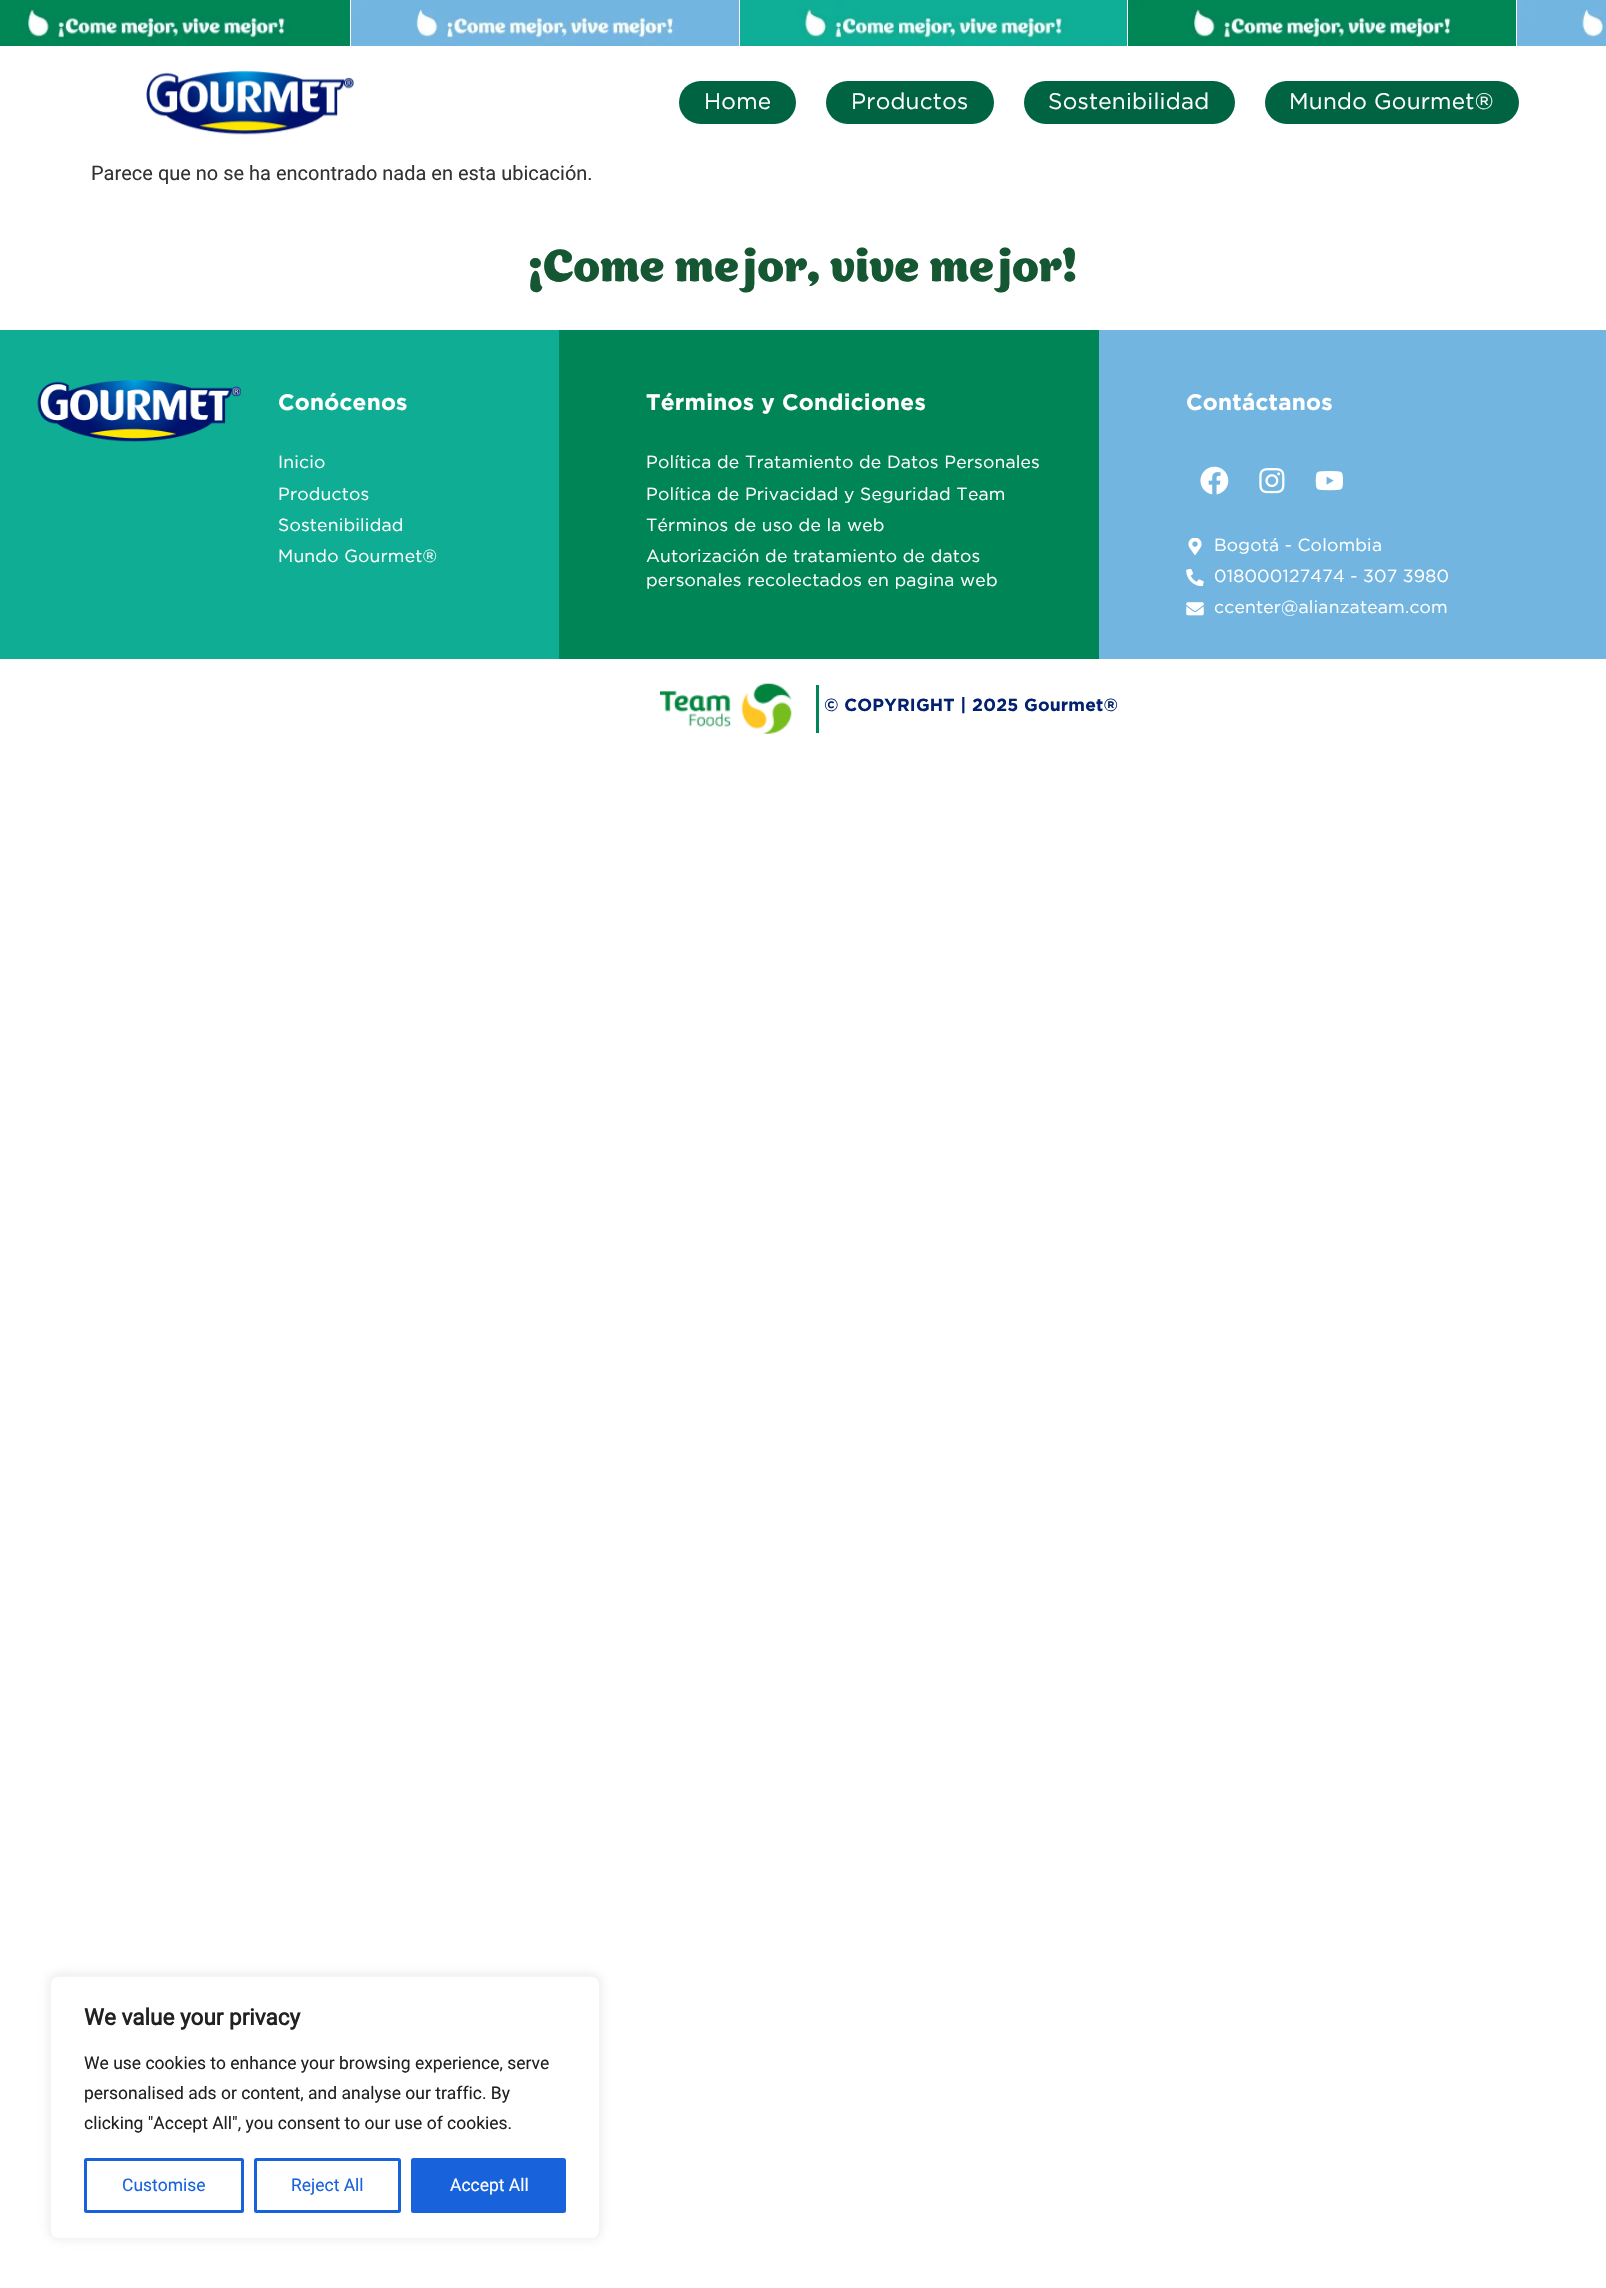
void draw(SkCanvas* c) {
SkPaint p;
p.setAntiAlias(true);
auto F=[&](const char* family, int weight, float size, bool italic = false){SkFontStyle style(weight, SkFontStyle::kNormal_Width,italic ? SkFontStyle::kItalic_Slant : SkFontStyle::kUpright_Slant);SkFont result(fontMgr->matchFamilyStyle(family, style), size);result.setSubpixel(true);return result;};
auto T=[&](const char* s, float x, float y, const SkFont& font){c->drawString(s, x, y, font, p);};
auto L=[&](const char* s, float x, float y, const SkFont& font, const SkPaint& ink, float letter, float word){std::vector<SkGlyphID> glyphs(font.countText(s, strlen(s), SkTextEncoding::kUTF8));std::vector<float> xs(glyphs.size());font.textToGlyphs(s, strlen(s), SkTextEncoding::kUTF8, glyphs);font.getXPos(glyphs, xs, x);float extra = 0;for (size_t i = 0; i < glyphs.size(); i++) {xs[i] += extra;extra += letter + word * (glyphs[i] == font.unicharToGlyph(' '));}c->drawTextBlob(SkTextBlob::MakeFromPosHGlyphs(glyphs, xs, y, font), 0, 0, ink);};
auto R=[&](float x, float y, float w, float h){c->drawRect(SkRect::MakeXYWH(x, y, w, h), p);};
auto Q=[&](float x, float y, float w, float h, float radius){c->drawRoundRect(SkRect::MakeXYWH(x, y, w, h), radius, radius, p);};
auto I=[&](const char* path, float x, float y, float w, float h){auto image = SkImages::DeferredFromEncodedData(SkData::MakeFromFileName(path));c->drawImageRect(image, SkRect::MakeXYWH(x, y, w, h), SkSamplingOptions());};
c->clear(0xffffffff);
I("1.png",0,0,350,46);
I("2.png",351,0,388,46);
I("3.png",740,0,387,46);
I("4.png",1128,0,388,46);
I("5.png",1517,0,89,46);
I("6.png",146,71,208,64);
p.setColor(0xff006443);
Q(679,81,117,43,21.5);
auto f1 = F("Gotham",400,22.5);
p.setColor(0xffffffff);
L("Home",704,109,f1,p,.25,0);
p.setColor(0xff006443);
Q(826,81,168,43,21.5);
p.setColor(0xffffffff);
L("Productos",851,109,f1,p,.25,0);
p.setColor(0xff006443);
Q(1024,81,211,43,21.5);
p.setColor(0xffffffff);
L("Sostenibilidad",1048,109,f1,p,.25,0);
p.setColor(0xff006443);
Q(1265,81,254,43,21.5);
p.setColor(0xffffffff);
L("Mundo Gourmet®",1289,109,f1,p,.25,0);
auto f2 = F("Roboto",400,20);
p.setColor(0xff333333);
T("Parece que no se ha encontrado nada en esta ubicación.",91,180,f2);
auto f3 = F("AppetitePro",700,44);
p.setColor(0xff165733);
L("¡Come mejor, vive mejor!",529,281,f3,p,.4,0);
p.setColor(0xff0fad94);
R(0,330,559,329);
I("7.png",37,380,204,62);
auto f4 = F("Gotham",700,22.5);
p.setColor(0xffffffff);
L("Conócenos",278,410,f4,p,.25,0);
auto f5 = F("Gotham",400,17.5);
L("Inicio",278,468,f5,p,.2,0);
L("Productos",278,500,f5,p,.2,0);
L("Sostenibilidad",278,531,f5,p,.2,0);
L("Mundo Gourmet®",278,562,f5,p,.2,0);
p.setColor(0xff008556);
R(559,330,540,329);
p.setColor(0xffffffff);
L("Términos y Condiciones",646,410,f4,p,.25,0);
L("Política de Tratamiento de Datos Personales",646,468,f5,p,.2,0);
L("Política de Privacidad y Seguridad Team",646,500,f5,p,.2,0);
L("Términos de uso de la web",646,531,f5,p,.2,0);
L("Autorización de tratamiento de datos",646,562,f5,p,.2,0);
L("personales recolectados en pagina web",646,586,f5,p,.2,0);
p.setColor(0xff72b5e0);
R(1099,330,507,329);
p.setColor(0xffffffff);
L("Contáctanos",1186,410,f4,p,.25,0);
I("8.png",1200,466,29,29);
I("9.png",1259,468,26,26);
I("10.png",1315,471,28,20);
I("11.png",1188,538,14,17);
L("Bogotá - Colombia",1214,551,f5,p,.2,0);
I("12.png",1186,569,18,17);
L("018000127474 - 307 3980",1214,582,f5,p,.2,0);
I("13.png",1186,602,18,14);
L("ccenter@alianzateam.com",1214,613,f5,p,.2,0);
I("14.png",660,683,132,51);
p.setColor(0xff008556);
R(816,685,3,48);
auto f6 = F("Gotham",700,17.5);
p.setColor(0xff02216e);
L("© COPYRIGHT | 2025 Gourmet®",824,711,f6,p,.2,0);
p.setColor(0x4dacabab);
p.setMaskFilter(SkMaskFilter::MakeBlur(kNormal_SkBlurStyle, 6));
c->drawRoundRect(SkRect::MakeXYWH(50,1975,550,263),8,8,p);
p.setMaskFilter(nullptr);
p.setColor(0xffffffff);
c->drawRoundRect(SkRect::MakeXYWH(50.5,1976.5,549,262),7.5,7.5,p);
p.setStroke(true);
p.setStrokeWidth(1);
p.setColor(0xfff4f4f4);
c->drawRoundRect(SkRect::MakeXYWH(50.5,1976.5,549,262),7.5,7.5,p);
auto f7 = F("Roboto",700,22.5);
p.setStroke(false);
p.setColor(0xff212121);
T("We value your privacy",84,2025,f7);
auto f8 = F("Roboto",400,17.5);
T("We use cookies to enhance your browsing experience, serve",84,2069,f8);
T("personalised ads or content, and analyse our traffic. By",84,2099,f8);
T("clicking \"Accept All\", you consent to our use of cookies.",84,2129,f8);
p.setStroke(true);
p.setStrokeWidth(3);
p.setColor(0xff1863dc);
c->drawRoundRect(SkRect::MakeXYWH(85.5,2159.5,157,52),1,1,p);
p.setStroke(false);
T("Customise",122,2191,f8);
p.setStroke(true);
c->drawRoundRect(SkRect::MakeXYWH(255.5,2159.5,144,52),1,1,p);
p.setStroke(false);
T("Reject All",291,2191,f8);
c->drawRoundRect(SkRect::MakeXYWH(412.5,2159.5,152,52),1,1,p);
p.setStroke(true);
c->drawRoundRect(SkRect::MakeXYWH(412.5,2159.5,152,52),1,1,p);
p.setStroke(false);
p.setColor(0xffffffff);
T("Accept All",450,2191,f8);
}
